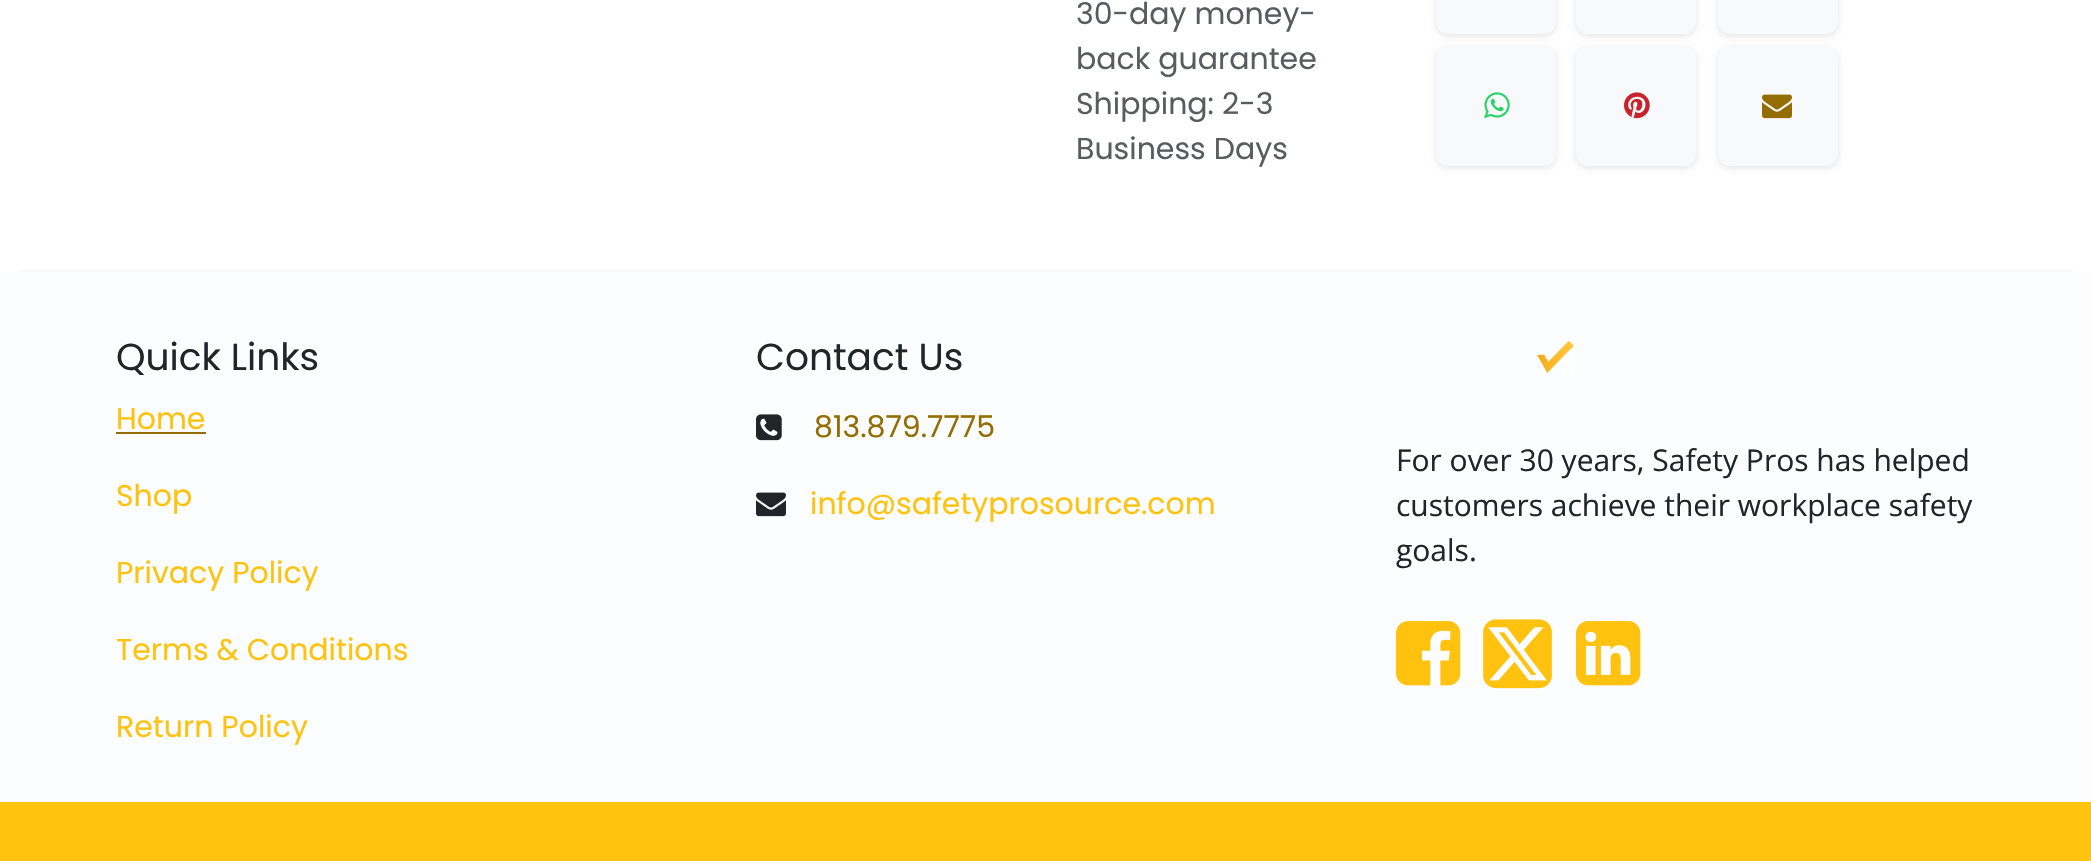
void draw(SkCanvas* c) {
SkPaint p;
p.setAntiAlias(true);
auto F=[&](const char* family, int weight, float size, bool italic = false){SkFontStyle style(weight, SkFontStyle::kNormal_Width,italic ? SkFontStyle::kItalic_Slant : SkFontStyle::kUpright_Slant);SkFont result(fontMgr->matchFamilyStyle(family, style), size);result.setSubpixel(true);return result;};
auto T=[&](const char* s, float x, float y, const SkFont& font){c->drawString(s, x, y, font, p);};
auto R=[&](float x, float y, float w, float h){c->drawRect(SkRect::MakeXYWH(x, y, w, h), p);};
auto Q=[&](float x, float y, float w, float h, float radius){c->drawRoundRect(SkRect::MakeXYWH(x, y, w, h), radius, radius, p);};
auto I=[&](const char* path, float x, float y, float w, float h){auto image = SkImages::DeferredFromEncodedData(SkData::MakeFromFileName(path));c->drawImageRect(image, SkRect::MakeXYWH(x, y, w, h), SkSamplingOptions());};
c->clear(0xffffffff);
auto f1 = F("Poppins",400,30);
p.setColor(0xff595c5f);
T("30-day money-",1076,24,f1);
T("back guarantee",1076,69,f1);
T("Shipping: 2-3",1076,114,f1);
T("Business Days",1076,159,f1);
p.setColor(0x1a000000);
p.setMaskFilter(SkMaskFilter::MakeBlur(kNormal_SkBlurStyle, 3));
c->drawRoundRect(SkRect::MakeXYWH(1436,-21,120,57),12,12,p);
p.setMaskFilter(nullptr);
p.setColor(0xfff8f9fa);
Q(1436,-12,120,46,12);
p.setColor(0x1a000000);
p.setMaskFilter(SkMaskFilter::MakeBlur(kNormal_SkBlurStyle, 3));
c->drawRoundRect(SkRect::MakeXYWH(1576,-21,120,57),12,12,p);
p.setMaskFilter(nullptr);
p.setColor(0xfff8f9fa);
Q(1576,-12,120,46,12);
p.setColor(0x1a000000);
p.setMaskFilter(SkMaskFilter::MakeBlur(kNormal_SkBlurStyle, 3));
c->drawRoundRect(SkRect::MakeXYWH(1718,-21,120,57),12,12,p);
p.setMaskFilter(nullptr);
p.setColor(0xfff8f9fa);
Q(1718,-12,120,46,12);
p.setColor(0x1a000000);
p.setMaskFilter(SkMaskFilter::MakeBlur(kNormal_SkBlurStyle, 3));
c->drawRoundRect(SkRect::MakeXYWH(1436,48,120,120),12,12,p);
p.setMaskFilter(nullptr);
p.setColor(0xfff8f9fa);
Q(1436,46,120,120,12);
I("1.png",1484,92,26,27);
p.setColor(0x1a000000);
p.setMaskFilter(SkMaskFilter::MakeBlur(kNormal_SkBlurStyle, 3));
c->drawRoundRect(SkRect::MakeXYWH(1576,48,120,120),12,12,p);
p.setMaskFilter(nullptr);
p.setColor(0xfff8f9fa);
Q(1576,46,120,120,12);
I("2.png",1624,92,26,27);
p.setColor(0x1a000000);
p.setMaskFilter(SkMaskFilter::MakeBlur(kNormal_SkBlurStyle, 3));
c->drawRoundRect(SkRect::MakeXYWH(1718,48,120,120),12,12,p);
p.setMaskFilter(nullptr);
p.setColor(0xfff8f9fa);
Q(1718,46,120,120,12);
I("3.png",1762,94,30,25);
p.setColor(0xfffbfdfe);
R(0,272,2091,530);
c->save();
c->clipRect(SkRect::MakeXYWH(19,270,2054,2));
p.setColor(0x26000000);
p.setMaskFilter(SkMaskFilter::MakeBlur(kNormal_SkBlurStyle, 16));
c->drawRect(SkRect::MakeXYWH(0,288,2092,530),p);
p.setMaskFilter(nullptr);
c->restore();
auto f2 = F("Poppins",400,37.5);
p.setColor(0xff212529);
T("Quick Links",116,370,f2);
p.setColor(0xffffc20e);
T("Home",116,429,f1);
p.setColor(0xff936d00);
R(116,432,90,2);
p.setColor(0xffffc20e);
T("Shop",116,506,f1);
T("Privacy Policy",116,583,f1);
T("Terms & Conditions",116,660,f1);
T("Return Policy",116,737,f1);
p.setColor(0xff212529);
T("Contact Us",756,370,f2);
I("4.png",756,414,26,27);
p.setColor(0xff936d00);
T("813.879.7775",814,437,f1);
I("5.png",756,492,30,25);
p.setColor(0xffffc20e);
T("info@safetyprosource.com",810,514,f1);
I("6.png",1536,341,38,33);
auto f3 = F("Open Sans",400,30);
p.setColor(0xff212529);
T("For over 30 years, Safety Pros has helped",1396,471,f3);
T("customers achieve their workplace safety",1396,516,f3);
T("goals.",1396,561,f3);
I("7.png",1396,621,65,65);
I("8.png",1483,619,69,70);
I("9.png",1576,621,65,65);
p.setColor(0xffffc20e);
R(0,802,2091,59);
}
